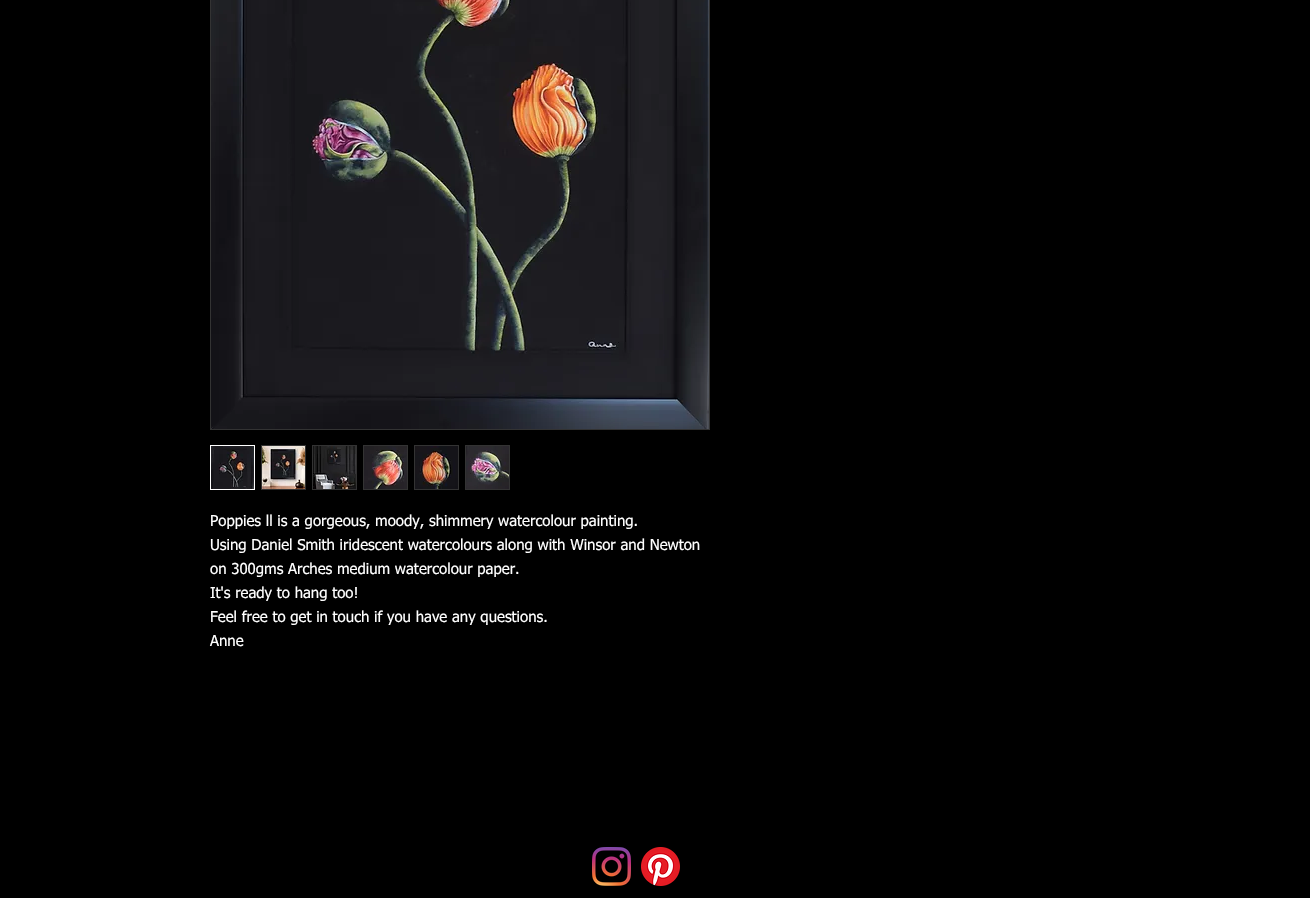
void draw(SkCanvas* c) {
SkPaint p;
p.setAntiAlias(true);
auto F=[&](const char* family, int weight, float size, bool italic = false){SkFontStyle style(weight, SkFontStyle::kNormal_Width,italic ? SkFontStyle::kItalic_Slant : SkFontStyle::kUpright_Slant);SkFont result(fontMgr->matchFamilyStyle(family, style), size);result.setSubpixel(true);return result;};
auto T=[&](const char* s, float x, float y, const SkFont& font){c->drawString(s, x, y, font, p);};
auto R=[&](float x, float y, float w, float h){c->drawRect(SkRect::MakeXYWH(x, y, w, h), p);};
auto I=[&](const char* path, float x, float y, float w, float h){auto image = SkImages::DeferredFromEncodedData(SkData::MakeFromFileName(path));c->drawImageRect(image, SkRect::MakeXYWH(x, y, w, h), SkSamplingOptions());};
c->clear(0xff000000);
p.setStroke(true);
p.setStrokeWidth(1);
p.setColor(0xff333333);
c->drawRect(SkRect::MakeXYWH(210.5,-.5,499,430),p);
I("1.png",211,0,498,429);
p.setColor(0xffffffff);
c->drawRect(SkRect::MakeXYWH(210.5,445.5,44,44),p);
I("2.png",211,446,43,43);
p.setStroke(false);
p.setColor(0xff333333);
R(261,445,45,45);
I("3.png",262,446,43,43);
R(312,445,45,45);
I("4.png",313,446,43,43);
R(363,445,45,45);
I("5.png",364,446,43,43);
R(414,445,45,45);
I("6.png",415,446,43,43);
R(465,445,45,45);
I("7.png",466,446,43,43);
auto f1 = F("tahoma",400,15);
p.setColor(0xffffffff);
T("Poppies ll is a gorgeous, moody, shimmery watercolour painting.",210,526,f1);
T("Using Daniel Smith iridescent watercolours along with Winsor and Newton",210,550,f1);
T("on 300gms Arches medium watercolour paper.",210,574,f1);
T("It's ready to hang too!",210,598,f1);
T("Feel free to get in touch if you have any questions.",210,622,f1);
T("Anne",210,646,f1);
I("8.png",592,847,39,39);
I("9.png",641,847,39,39);
}
